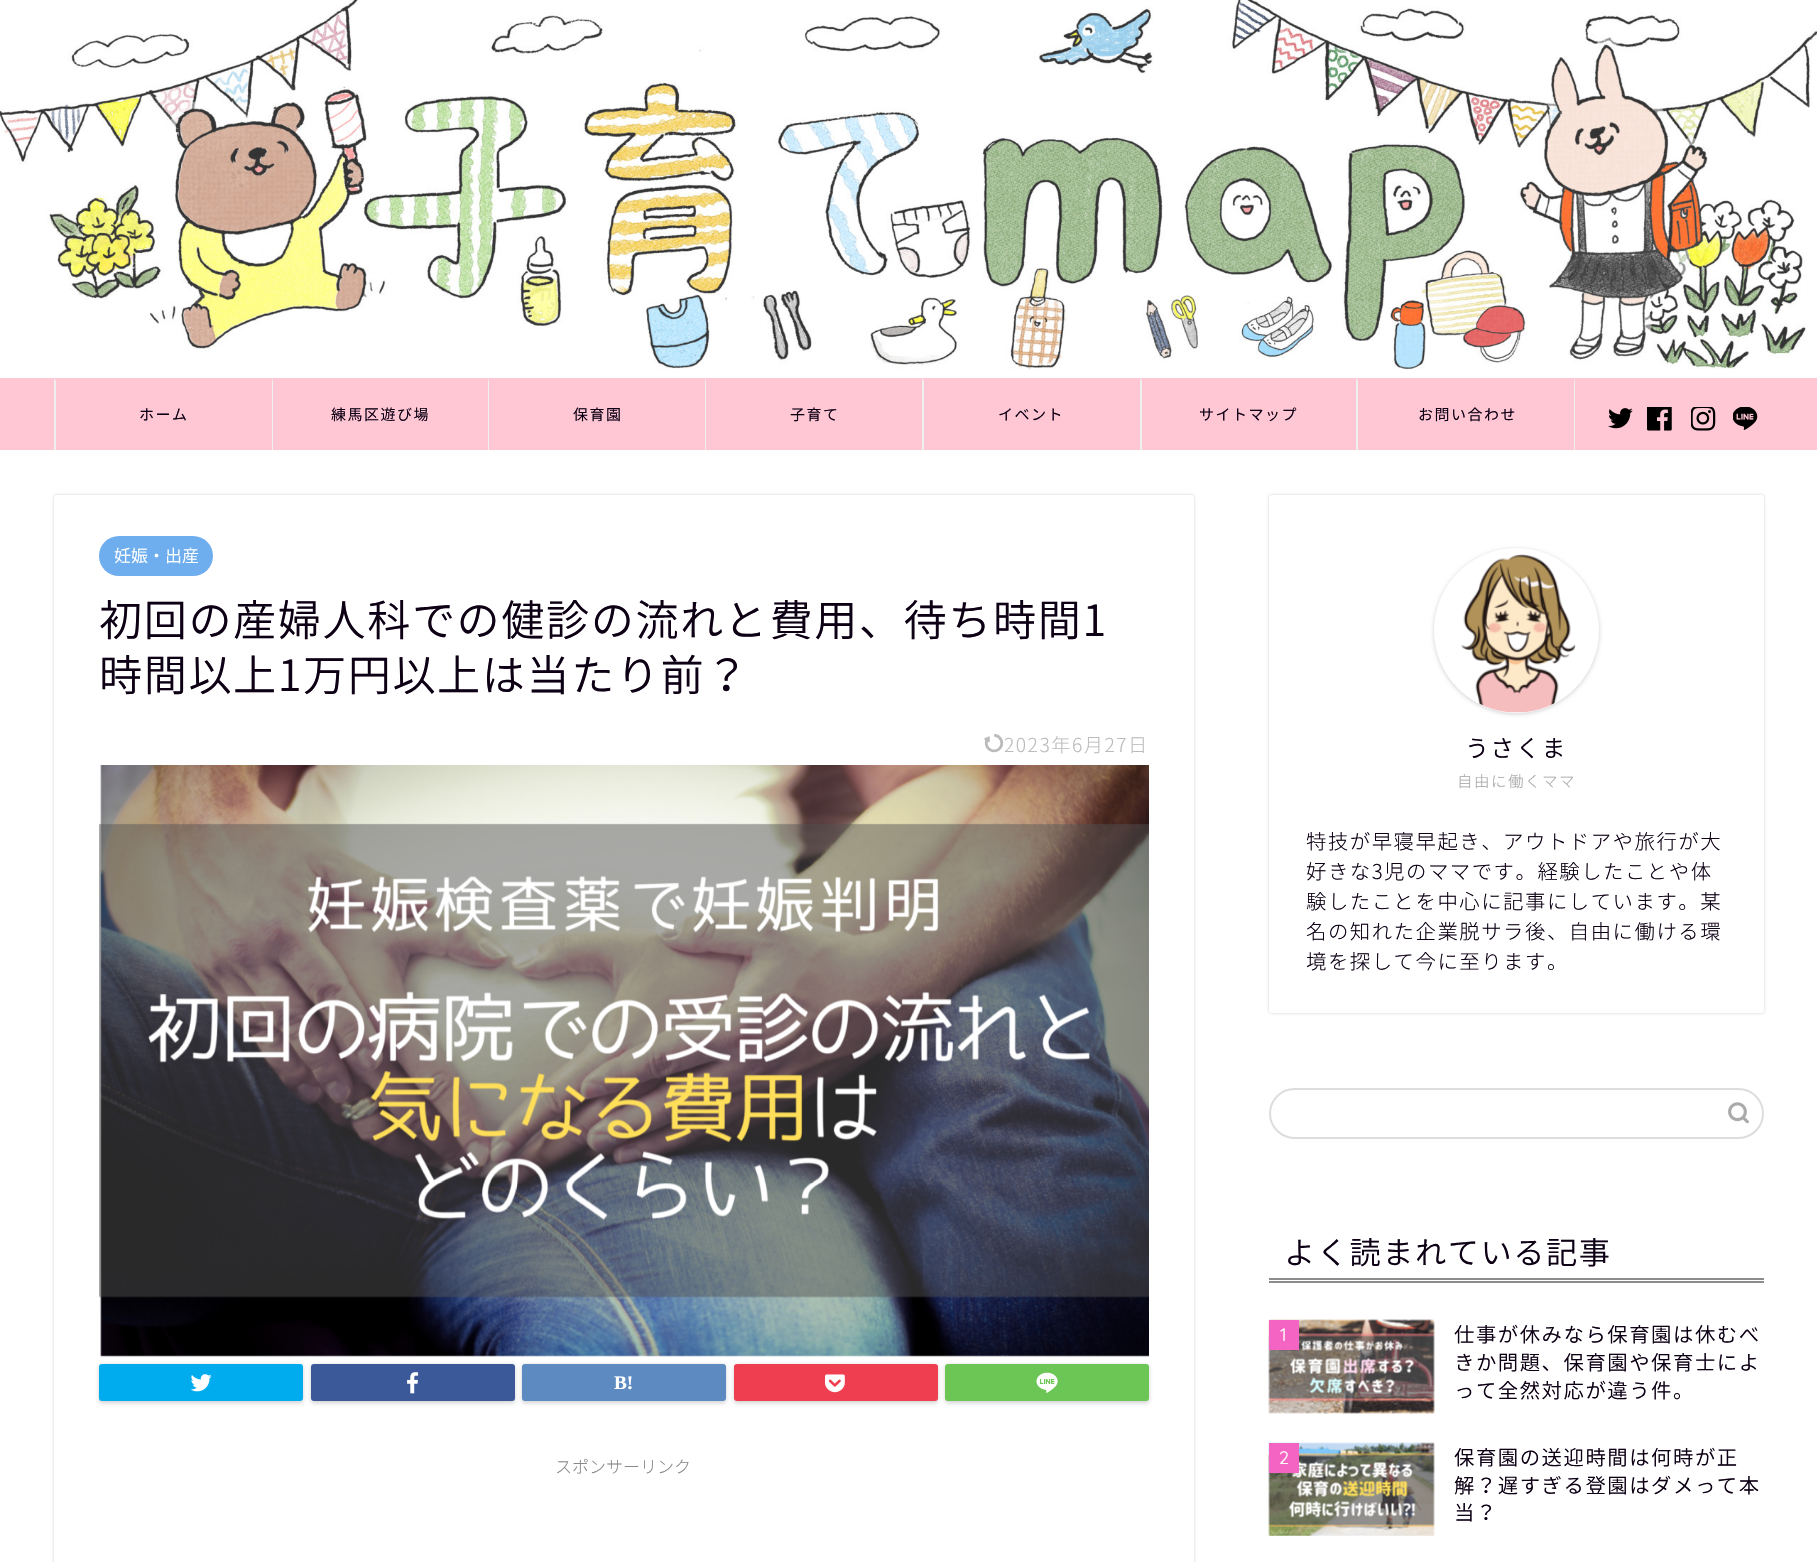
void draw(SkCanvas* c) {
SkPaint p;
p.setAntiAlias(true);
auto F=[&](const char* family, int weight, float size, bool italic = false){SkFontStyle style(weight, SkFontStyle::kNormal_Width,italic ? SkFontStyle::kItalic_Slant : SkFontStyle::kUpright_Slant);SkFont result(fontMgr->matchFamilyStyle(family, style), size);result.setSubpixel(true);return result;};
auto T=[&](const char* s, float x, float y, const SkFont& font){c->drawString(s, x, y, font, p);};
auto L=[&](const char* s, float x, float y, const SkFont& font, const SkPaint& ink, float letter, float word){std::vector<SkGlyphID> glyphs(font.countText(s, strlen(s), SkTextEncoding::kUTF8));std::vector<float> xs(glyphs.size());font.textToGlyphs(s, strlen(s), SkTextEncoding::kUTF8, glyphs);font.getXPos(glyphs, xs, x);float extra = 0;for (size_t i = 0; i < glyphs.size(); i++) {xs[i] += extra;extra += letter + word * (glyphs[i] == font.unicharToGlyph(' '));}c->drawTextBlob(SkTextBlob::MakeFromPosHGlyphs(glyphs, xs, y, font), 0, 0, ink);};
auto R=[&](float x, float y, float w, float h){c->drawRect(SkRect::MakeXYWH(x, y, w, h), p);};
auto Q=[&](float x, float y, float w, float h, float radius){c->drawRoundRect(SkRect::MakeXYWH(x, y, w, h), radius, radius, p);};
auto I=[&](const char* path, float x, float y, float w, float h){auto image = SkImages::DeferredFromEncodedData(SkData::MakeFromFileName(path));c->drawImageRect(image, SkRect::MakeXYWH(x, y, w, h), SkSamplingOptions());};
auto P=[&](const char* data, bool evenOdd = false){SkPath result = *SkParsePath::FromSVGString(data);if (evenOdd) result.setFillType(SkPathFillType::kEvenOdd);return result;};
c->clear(0xffffffff);
I("1.png",0,0,1817,370);
p.setColor(0xffffc6d4);
R(0,378,1817,72);
p.setColor(0xffefefef);
c->drawPath(P("M54 450v-72l2 3v69z"),p);
auto f1 = F("Noto Sans JP",400,15);
p.setColor(0xff0d0015);
L("ホーム",139,420,f1,p,1.5,0);
p.setColor(0xffefefef);
c->drawPath(P("M272 450v-72l1 3v69z"),p);
p.setColor(0xff0d0015);
L("練馬区遊び場",331,420,f1,p,1.5,0);
p.setColor(0xffefefef);
c->drawPath(P("M488 450v-72l1 3v69z"),p);
p.setColor(0xff0d0015);
L("保育園",573,420,f1,p,1.5,0);
p.setColor(0xffefefef);
c->drawPath(P("M705 450v-72l1 3v69z"),p);
p.setColor(0xff0d0015);
L("子育て",790,420,f1,p,1.5,0);
p.setColor(0xffefefef);
c->drawPath(P("M922 450v-72l2 3v69z"),p);
p.setColor(0xff0d0015);
L("イベント",998,420,f1,p,1.5,0);
p.setColor(0xffefefef);
c->drawPath(P("M1140 450v-72l2 3v69z"),p);
p.setColor(0xff0d0015);
L("サイトマップ",1199,420,f1,p,1.5,0);
p.setColor(0xffefefef);
c->drawPath(P("M1575 378v72h-1v-69z"),p);
c->drawPath(P("M1356 450v-72l2 3v69z"),p);
p.setColor(0xff0d0015);
L("お問い合わせ",1418,420,f1,p,1.5,0);
I("2.png",1608,408,25,21);
I("3.png",1647,407,25,24);
I("4.png",1691,407,25,24);
I("5.png",1733,407,25,23);
p.setColor(0x2e000000);
p.setMaskFilter(SkMaskFilter::MakeBlur(kNormal_SkBlurStyle, 1.5));
c->drawRoundRect(SkRect::MakeXYWH(54,495,1140,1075),3,3,p);
p.setMaskFilter(nullptr);
p.setColor(0xffffffff);
Q(54,495,1140,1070,3);
p.setColor(0xff6eaeef);
Q(99,536,114,40,20);
auto f2 = F("Noto Sans JP",300,17);
p.setColor(0xffffffff);
T("妊娠・出産",114,562,f2);
auto f3 = F("Noto Sans JP",300,43.2);
p.setColor(0xff0d0015);
L("初回の産婦人科での健診の流れと費用、待ち時間1",99,636,f3,p,1.5,0);
L("時間以上1万円以上は当たり前？",99,691,f3,p,1.5,0);
I("6.png",984,734,20,19);
auto f4 = F("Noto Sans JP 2",300,19.25);
p.setColor(0xffbbbbbb);
L("2023年6月27日",1004,752,f4,p,1.5,0);
I("7.png",99,765,1050,592);
p.setColor(0x2e000000);
p.setMaskFilter(SkMaskFilter::MakeBlur(kNormal_SkBlurStyle, 2));
c->drawRoundRect(SkRect::MakeXYWH(99,1365,204,38),3,3,p);
p.setMaskFilter(nullptr);
p.setColor(0xff00acee);
c->drawRoundRect(SkRect::MakeXYWH(100.5,1365.5,201,34),1.5,1.5,p);
p.setStroke(true);
p.setStrokeWidth(3);
c->drawRoundRect(SkRect::MakeXYWH(100.5,1365.5,201,34),1.5,1.5,p);
I("8.png",190,1374,22,18);
p.setStroke(false);
p.setColor(0x2e000000);
p.setMaskFilter(SkMaskFilter::MakeBlur(kNormal_SkBlurStyle, 2));
c->drawRoundRect(SkRect::MakeXYWH(311,1365,204,38),3,3,p);
p.setMaskFilter(nullptr);
p.setColor(0xff3b5998);
c->drawRoundRect(SkRect::MakeXYWH(312.5,1365.5,201,34),1.5,1.5,p);
p.setStroke(true);
c->drawRoundRect(SkRect::MakeXYWH(312.5,1365.5,201,34),1.5,1.5,p);
I("9.png",407,1372,12,22);
p.setStroke(false);
p.setColor(0x2e000000);
p.setMaskFilter(SkMaskFilter::MakeBlur(kNormal_SkBlurStyle, 2));
c->drawRoundRect(SkRect::MakeXYWH(522,1365,204,38),3,3,p);
p.setMaskFilter(nullptr);
p.setColor(0xff5d8ac1);
c->drawRoundRect(SkRect::MakeXYWH(523.5,1365.5,201,34),1.5,1.5,p);
p.setStroke(true);
c->drawRoundRect(SkRect::MakeXYWH(523.5,1365.5,201,34),1.5,1.5,p);
auto f5 = F("Liberation Serif",700,19.25);
p.setStroke(false);
p.setColor(0xffffffff);
T("B!",614,1389,f5);
p.setColor(0x2e000000);
p.setMaskFilter(SkMaskFilter::MakeBlur(kNormal_SkBlurStyle, 2));
c->drawRoundRect(SkRect::MakeXYWH(734,1365,204,38),3,3,p);
p.setMaskFilter(nullptr);
p.setColor(0xfff03e51);
c->drawRoundRect(SkRect::MakeXYWH(735.5,1365.5,201,34),1.5,1.5,p);
p.setStroke(true);
c->drawRoundRect(SkRect::MakeXYWH(735.5,1365.5,201,34),1.5,1.5,p);
I("10.png",825,1374,20,19);
p.setStroke(false);
p.setColor(0x2e000000);
p.setMaskFilter(SkMaskFilter::MakeBlur(kNormal_SkBlurStyle, 2));
c->drawRoundRect(SkRect::MakeXYWH(945,1365,204,38),3,3,p);
p.setMaskFilter(nullptr);
p.setColor(0xff6cc655);
c->drawRoundRect(SkRect::MakeXYWH(946.5,1365.5,201,34),1.5,1.5,p);
p.setStroke(true);
c->drawRoundRect(SkRect::MakeXYWH(946.5,1365.5,201,34),1.5,1.5,p);
I("11.png",1036,1372,22,21);
auto f6 = F("Noto Sans JP 2",300,17);
p.setStroke(false);
p.setColor(0xff888888);
T("スポンサーリンク",555,1473,f6);
p.setColor(0x2e000000);
p.setMaskFilter(SkMaskFilter::MakeBlur(kNormal_SkBlurStyle, 1.5));
c->drawRoundRect(SkRect::MakeXYWH(1269,495,495,518),3,3,p);
p.setMaskFilter(nullptr);
p.setColor(0xffffffff);
Q(1269,495,495,518,3);
p.setColor(0x2e000000);
p.setMaskFilter(SkMaskFilter::MakeBlur(kNormal_SkBlurStyle, 2));
c->drawRoundRect(SkRect::MakeXYWH(1434,549,165,165),82.5,82.5,p);
p.setMaskFilter(nullptr);
p.setColor(0xffffffff);
c->drawCircle(1516.5,630.5,82.5,p);
I("12.png",1461,554,115,159);
auto f7 = F("Noto Sans JP",300,24);
p.setColor(0xff0d0015);
L("うさくま",1465,757,f7,p,1.5,0);
auto f8 = F("Noto Sans JP 2",300,15.5);
p.setColor(0xffa6a6a6);
L("自由に働くママ",1457,787,f8,p,1.5,0);
auto f9 = F("Noto Sans JP 2",300,20.4);
p.setColor(0xff0d0015);
L("特技が早寝早起き、アウトドアや旅行が大",1306,849,f9,p,1.5,0);
L("好きな3児のママです。経験したことや体",1306,879,f9,p,1.5,0);
L("験したことを中心に記事にしています。某",1306,909,f9,p,1.5,0);
L("名の知れた企業脱サラ後、自由に働ける環",1306,939,f9,p,1.5,0);
L("境を探して今に至ります。",1306,969,f9,p,1.5,0);
p.setStroke(true);
p.setStrokeWidth(2);
p.setColor(0xffdddddd);
c->drawRoundRect(SkRect::MakeXYWH(1270,1089,493,49),24.5,24.5,p);
I("13.png",1728,1102,21,22);
p.setStroke(false);
p.setColor(0xff8c8c8c);
R(1269,1278,495,2);
R(1269,1281,495,2);
auto f10 = F("Noto Sans JP",300,31.25);
p.setColor(0xff0d0015);
L("よく読まれている記事",1284,1264,f10,p,1.5,0);
I("14.png",1268,1319,167,95);
p.setColor(0xfff464c2);
R(1269,1320,30,30);
auto f11 = F("Quicksand",300,18);
p.setColor(0xffffffff);
T("1",1280,1341,f11);
auto f12 = F("Noto Sans JP",300,20.4);
p.setColor(0xff0d0015);
L("仕事が休みなら保育園は休むべ",1454,1342,f12,p,1.5,0);
L("きか問題、保育園や保育士によ",1454,1370,f12,p,1.5,0);
L("って全然対応が違う件。",1454,1398,f12,p,1.5,0);
I("15.png",1268,1442,167,94);
p.setColor(0xfff464c2);
R(1269,1443,30,30);
p.setColor(0xffffffff);
T("2",1279,1464,f11);
p.setColor(0xff0d0015);
L("保育園の送迎時間は何時が正",1454,1465,f12,p,1.5,0);
L("解？遅すぎる登園はダメって本",1454,1493,f12,p,1.5,0);
L("当？",1454,1520,f12,p,1.5,0);
}
